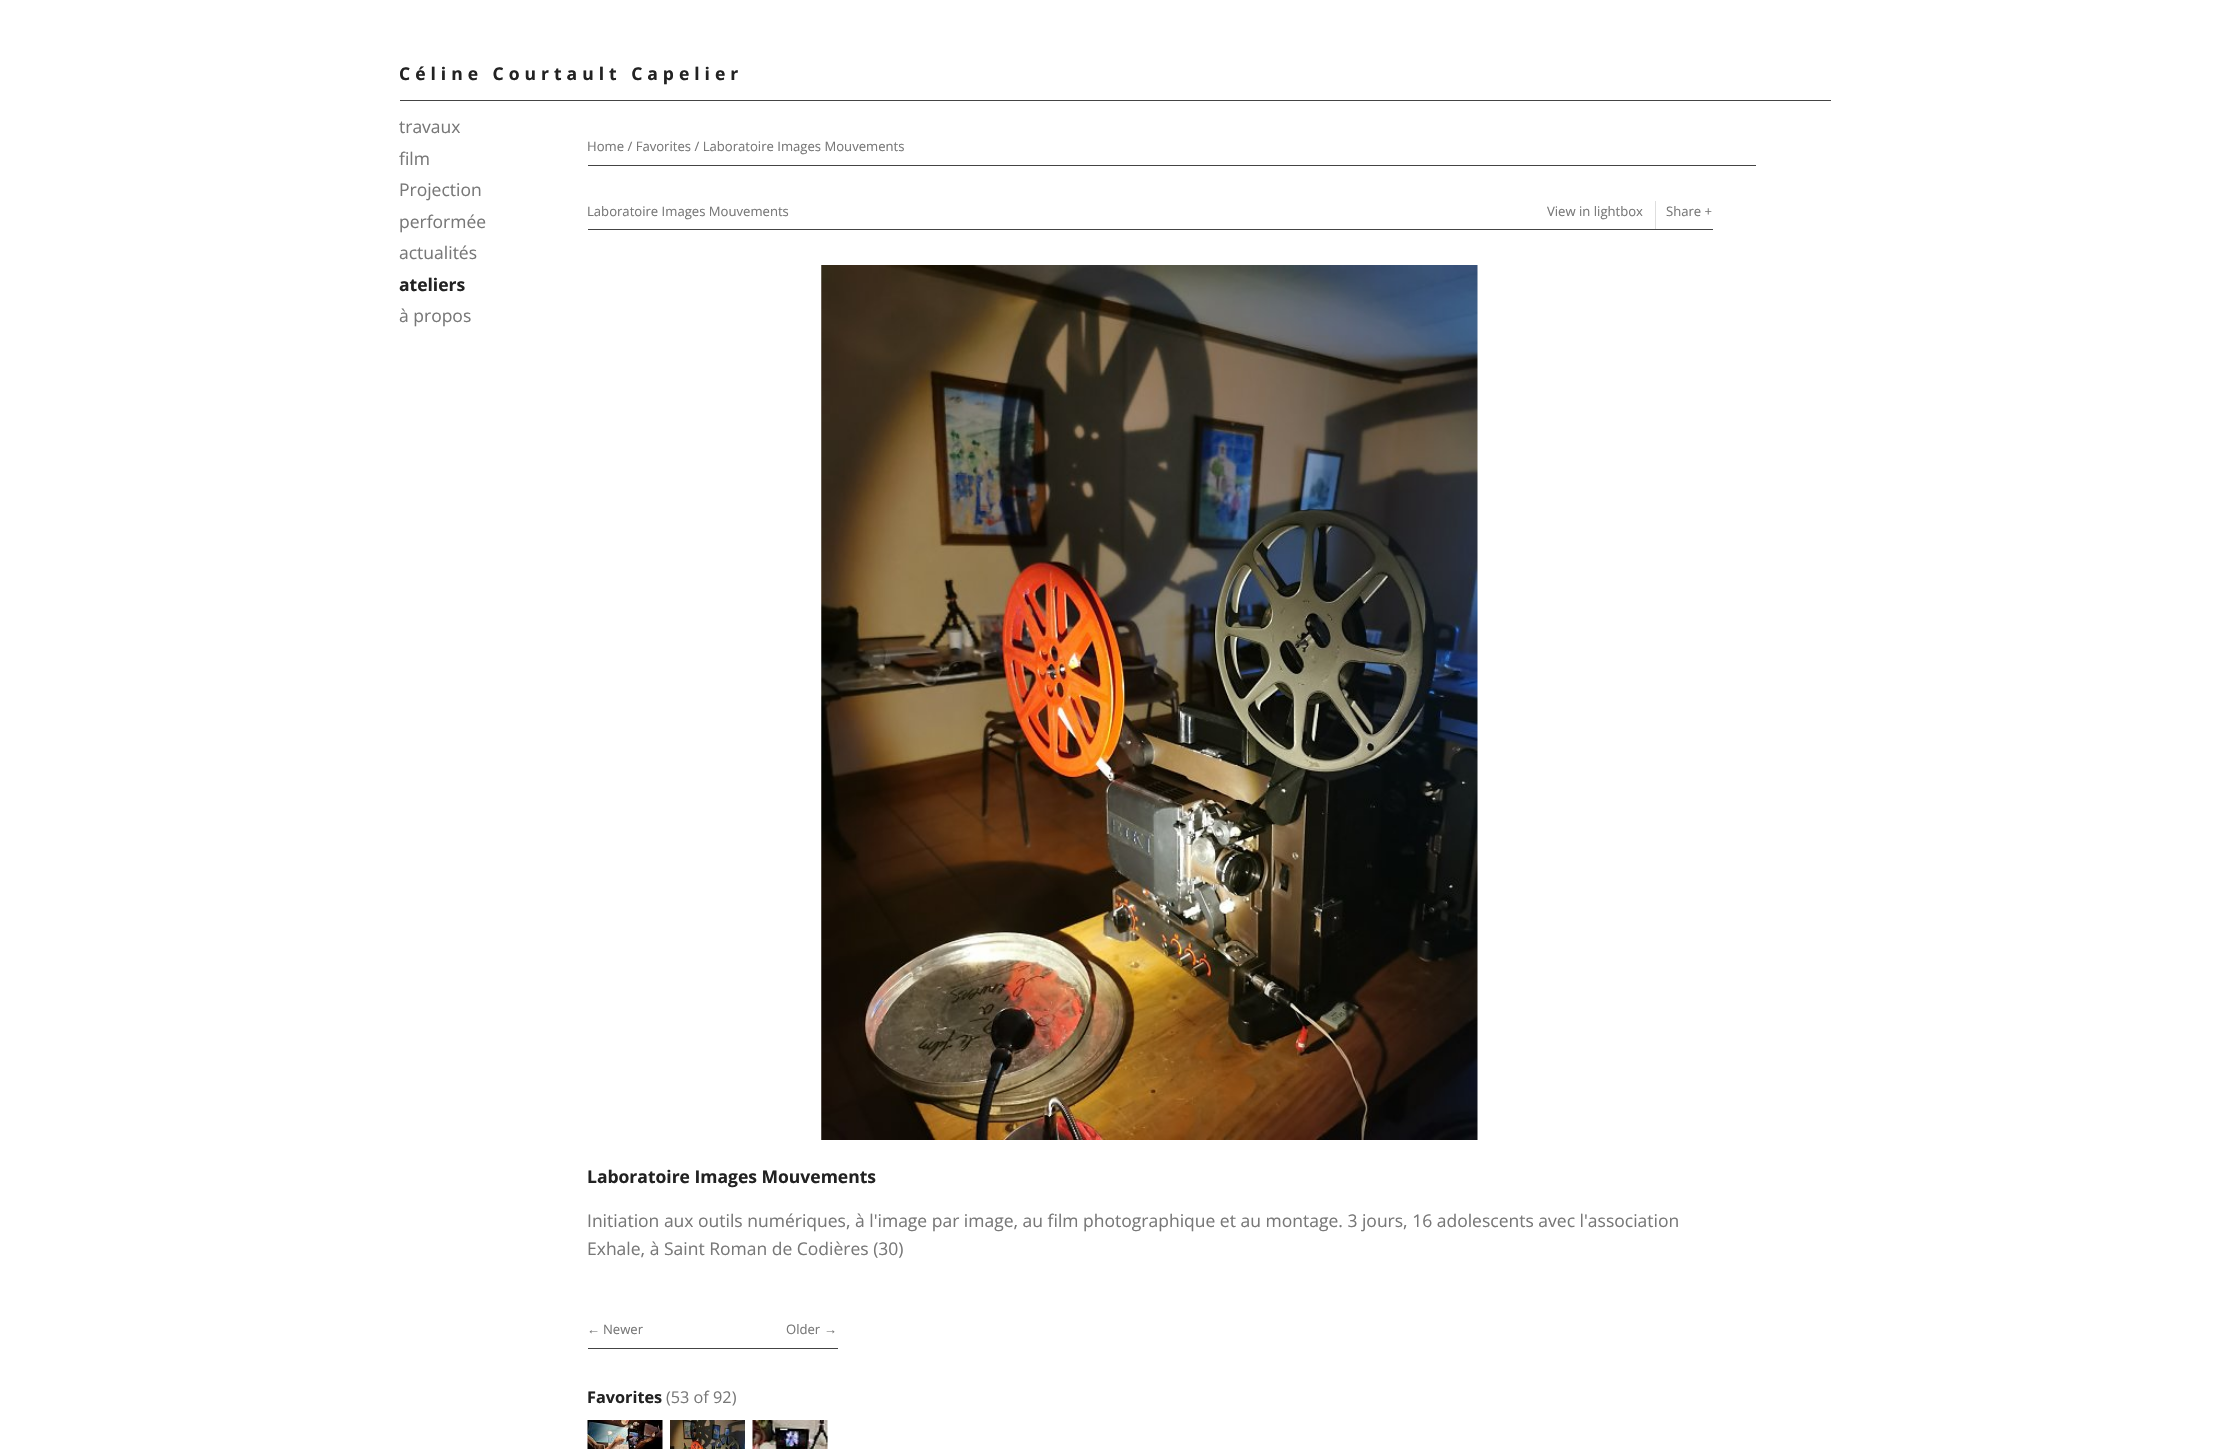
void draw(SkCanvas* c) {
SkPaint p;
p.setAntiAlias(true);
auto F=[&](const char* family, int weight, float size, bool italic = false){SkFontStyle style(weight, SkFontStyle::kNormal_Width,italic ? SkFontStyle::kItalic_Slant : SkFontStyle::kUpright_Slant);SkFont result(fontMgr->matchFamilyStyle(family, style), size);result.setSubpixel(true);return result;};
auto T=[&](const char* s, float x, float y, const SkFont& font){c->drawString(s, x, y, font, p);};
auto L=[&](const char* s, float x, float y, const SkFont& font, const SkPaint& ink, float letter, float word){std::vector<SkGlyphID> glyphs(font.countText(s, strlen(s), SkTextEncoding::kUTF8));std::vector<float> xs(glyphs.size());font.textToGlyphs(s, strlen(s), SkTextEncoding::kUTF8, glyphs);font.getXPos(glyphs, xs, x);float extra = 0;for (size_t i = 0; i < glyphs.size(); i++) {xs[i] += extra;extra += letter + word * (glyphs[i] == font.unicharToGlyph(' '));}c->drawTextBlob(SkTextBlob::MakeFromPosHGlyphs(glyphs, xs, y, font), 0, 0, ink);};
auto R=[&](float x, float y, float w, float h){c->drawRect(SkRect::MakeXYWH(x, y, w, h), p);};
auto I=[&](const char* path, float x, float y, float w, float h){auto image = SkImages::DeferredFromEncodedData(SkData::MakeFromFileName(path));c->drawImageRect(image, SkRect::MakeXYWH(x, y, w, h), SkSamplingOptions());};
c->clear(0xffffffff);
p.setColor(0xff444444);
R(400,100,1431,1);
auto f1 = F("Open Sans",700,17.5);
p.setColor(0xff222222);
L("Céline Courtault Capelier",399,80,f1,p,5,0);
auto f2 = F("Open Sans",400,17.5);
p.setColor(0xff787878);
T("travaux",399,133,f2);
T("film",399,165,f2);
T("Projection",399,196,f2);
T("performée",399,228,f2);
T("actualités",399,259,f2);
p.setColor(0xff222222);
T("ateliers",399,291,f1);
p.setColor(0xff787878);
T("à propos",399,322,f2);
p.setColor(0xff444444);
R(588,165,1168,1);
auto f3 = F("Open Sans",400,13.1);
p.setColor(0xff787878);
T("Home / Favorites / Laboratoire Images Mouvements",587,151,f3);
p.setColor(0xff444444);
R(588,229,1125,1);
p.setColor(0xff787878);
T("Laboratoire Images Mouvements",587,216,f3);
T("View in lightbox",1547,216,f3);
p.setColor(0xffdedede);
R(1655,201,1,28);
p.setColor(0xff787878);
T("Share +",1666,216,f3);
I("1.png",821,265,657,875);
p.setColor(0xff222222);
T("Laboratoire Images Mouvements",587,1183,f1);
p.setColor(0xff787878);
T("Initiation aux outils numériques, à l'image par image, au film photographique et au montage. 3 jours, 16 adolescents avec l'association",587,1227,f2);
T("Exhale, à Saint Roman de Codières (30)",587,1255,f2);
p.setColor(0xff444444);
R(588,1348,250,1);
auto f4 = F("Liberation Sans",400,13.1);
p.setColor(0xff787878);
T("←",587,1334,f4);
T("Newer",603,1334,f3);
T("Older",786,1334,f3);
T("→",824,1334,f4);
auto f5 = F("Open Sans",700,16.25);
p.setColor(0xff222222);
T("Favorites",587,1403,f5);
auto f6 = F("Open Sans",400,16.25);
p.setColor(0xff787878);
T("(53 of 92)",666,1403,f6);
I("2.png",587,1420,76,29);
I("3.png",670,1420,75,29);
I("4.png",752,1420,76,29);
}
